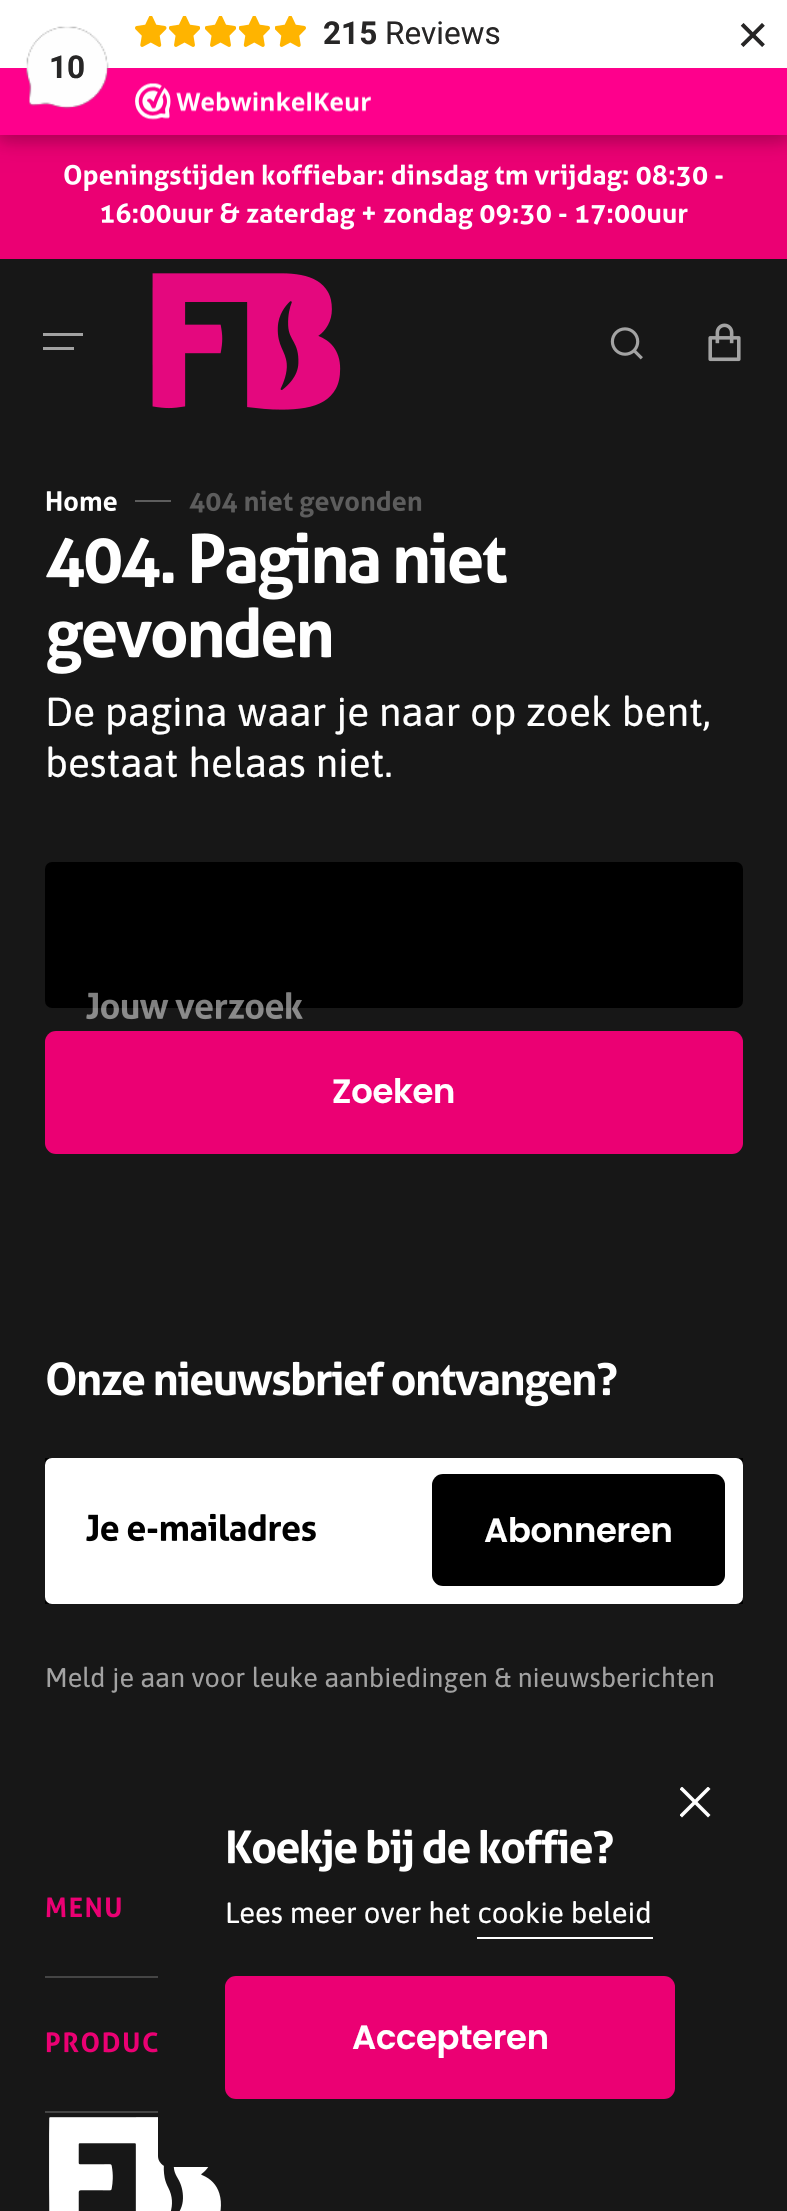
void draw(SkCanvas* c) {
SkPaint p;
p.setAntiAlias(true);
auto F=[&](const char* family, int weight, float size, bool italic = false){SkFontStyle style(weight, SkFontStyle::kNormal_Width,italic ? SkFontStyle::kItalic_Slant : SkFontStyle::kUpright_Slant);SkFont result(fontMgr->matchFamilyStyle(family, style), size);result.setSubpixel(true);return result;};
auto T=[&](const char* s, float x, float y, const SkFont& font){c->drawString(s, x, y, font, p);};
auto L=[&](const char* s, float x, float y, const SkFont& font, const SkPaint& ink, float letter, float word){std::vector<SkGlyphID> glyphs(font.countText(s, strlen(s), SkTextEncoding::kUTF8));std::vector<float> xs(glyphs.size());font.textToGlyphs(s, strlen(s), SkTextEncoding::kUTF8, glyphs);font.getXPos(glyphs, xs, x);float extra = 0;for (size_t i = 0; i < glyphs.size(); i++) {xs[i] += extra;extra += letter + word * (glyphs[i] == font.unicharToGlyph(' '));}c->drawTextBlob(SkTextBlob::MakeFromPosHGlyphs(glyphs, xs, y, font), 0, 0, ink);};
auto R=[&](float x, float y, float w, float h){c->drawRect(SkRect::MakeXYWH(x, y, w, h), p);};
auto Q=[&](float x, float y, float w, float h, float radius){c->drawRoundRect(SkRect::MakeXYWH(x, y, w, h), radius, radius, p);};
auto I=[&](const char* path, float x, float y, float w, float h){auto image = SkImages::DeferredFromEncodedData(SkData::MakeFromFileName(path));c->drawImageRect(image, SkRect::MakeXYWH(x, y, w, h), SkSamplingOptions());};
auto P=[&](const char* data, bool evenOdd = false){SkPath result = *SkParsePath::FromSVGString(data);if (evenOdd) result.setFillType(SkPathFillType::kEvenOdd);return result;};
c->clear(0xff171717);
p.setColor(0xffeb0073);
R(0,135,787,124);
p.setColor(0x26000000);
p.setMaskFilter(SkMaskFilter::MakeBlur(kNormal_SkBlurStyle, 7));
c->drawRect(SkRect::MakeXYWH(-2,-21,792,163),p);
p.setMaskFilter(nullptr);
I("6.png",64,164,659,28);
p.setMaskFilter(SkMaskFilter::MakeBlur(kNormal_SkBlurStyle, 11));
c->drawRect(SkRect::MakeXYWH(0,5,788,135),p);
p.setMaskFilter(nullptr);
p.setColor(0xffffffff);
R(0,0,787,68);
I("1.png",135,16,32,31);
I("2.png",169,16,31,31);
I("2.png",205,16,31,31);
I("3.png",239,16,31,31);
I("3.png",275,16,31,31);
auto f1 = F("Roboto",700,31.5);
p.setColor(0xff272626);
T("215",323,44,f1);
auto f2 = F("Roboto",400,31.5);
T("Reviews",385,44,f2);
auto f3 = F("Liberation Sans",400,54);
T("×",737,53,f3);
p.setColor(0xfffe008c);
R(0,68,787,67);
I("4.png",26,26,83,83);
p.setColor(0xff272626);
T("10",49,78,f1);
I("5.png",135,83,236,37);
I("7.png",101,202,372,28);
I("8.png",480,204,208,21);
p.setColor(0xffa2a2a2);
R(43,333,40,3);
R(43,347,31,3);
I("9.png",152,273,189,137);
I("10.png",610,327,33,33);
I("11.png",708,323,33,39);
I("12.png",46,491,71,21);
p.setColor(0xff5d5d5d);
R(135,500,36,2);
I("13.png",189,490,233,28);
I("14.png",46,532,461,68);
I("15.png",47,607,284,67);
auto f4 = F("Asap",400,40.5);
p.setColor(0xffffffff);
T("De pagina waar je naar op zoek bent,",45,726,f4);
T("bestaat helaas niet.",45,777,f4);
p.setColor(0xff000000);
Q(45,862,698,146,7);
I("16.png",86,992,217,28);
p.setColor(0xffeb0073);
Q(45,1031,698,123,11);
auto f5 = F("Poppins",600,33.75);
p.setColor(0xffffffff);
L("Zoeken",332,1103,f5,p,-.25,0);
I("17.png",47,1361,570,46);
p.setColor(0xff000000);
R(45,1458,698,146);
p.setColor(0xffffffff);
c->drawRoundRect(SkRect::MakeXYWH(46,1459,696,144),6,6,p);
p.setStroke(true);
p.setStrokeWidth(2);
c->drawRoundRect(SkRect::MakeXYWH(46,1459,696,144),6,6,p);
I("18.png",86,1513,230,29);
p.setStroke(false);
p.setColor(0xff000000);
Q(432,1474,293,112,11);
p.setColor(0xffffffff);
L("Abonneren",484,1542,f5,p,-.25,0);
auto f6 = F("Asap",400,27);
p.setColor(0xffa2a2a2);
T("Meld je aan voor leuke aanbiedingen & nieuwsberichten",45,1687,f6);
p.setColor(0xff454545);
R(45,1976,113,2);
I("19.png",46,1897,75,21);
R(45,2111,113,2);
I("20.png",46,2032,112,21);
I("21.png",49,2117,172,94);
p.setColor(0xff171717);
Q(158,1755,585,412,11);
c->save();
c->clipRect(SkRect::MakeXYWH(680,1787,31,31));
p.setColor(0xffffffff);
c->drawPath(P("M679.5 1815l28.5-28.5l2.5 2.5l-28.5 28.5z"),p);
c->drawPath(P("M682 1786.5l28.5 28.5l-2.5 2.5l-28.5-28.5z"),p);
c->restore();
I("22.png",228,1829,385,43);
auto f7 = F("Asap",400,29.25);
T("Lees meer over het cookie beleid",225,1923,f7);
R(477,1937,176,2);
p.setColor(0xffeb0073);
Q(225,1976,450,123,11);
p.setColor(0xffffffff);
L("Accepteren",352,2049,f5,p,-.25,0);
}
